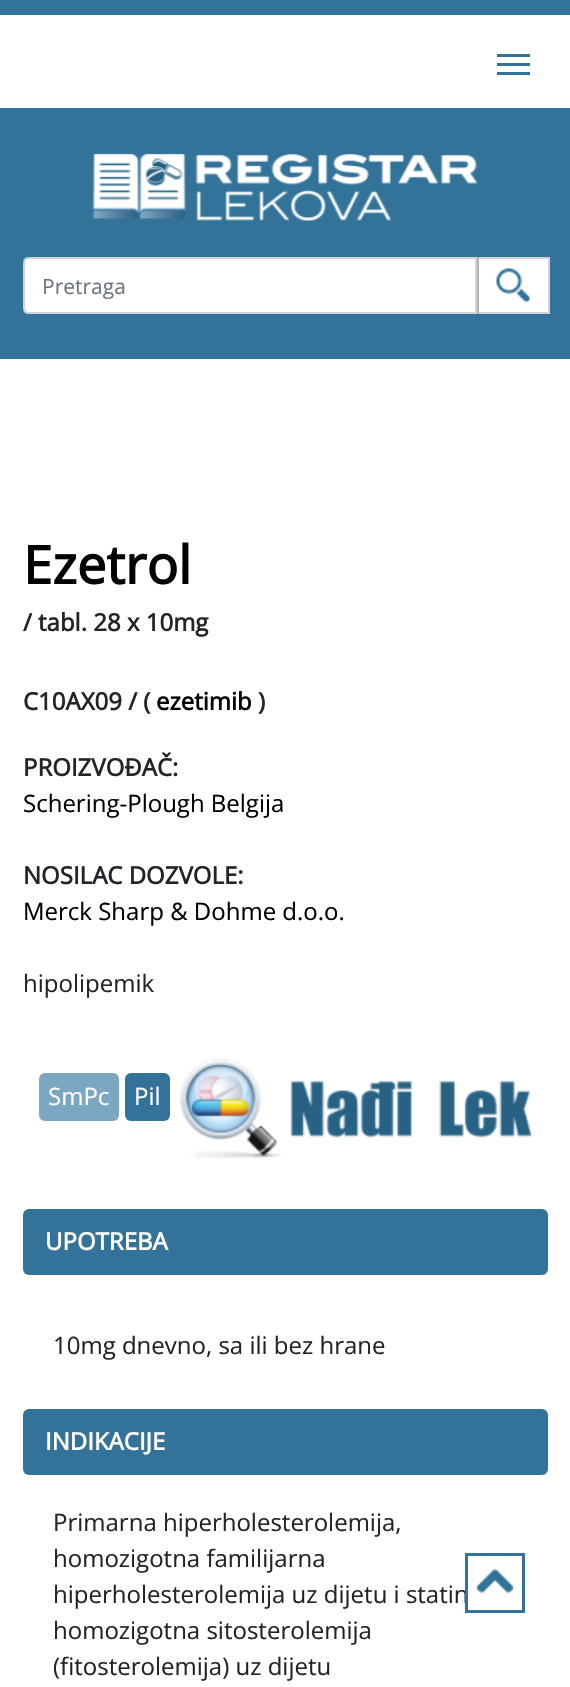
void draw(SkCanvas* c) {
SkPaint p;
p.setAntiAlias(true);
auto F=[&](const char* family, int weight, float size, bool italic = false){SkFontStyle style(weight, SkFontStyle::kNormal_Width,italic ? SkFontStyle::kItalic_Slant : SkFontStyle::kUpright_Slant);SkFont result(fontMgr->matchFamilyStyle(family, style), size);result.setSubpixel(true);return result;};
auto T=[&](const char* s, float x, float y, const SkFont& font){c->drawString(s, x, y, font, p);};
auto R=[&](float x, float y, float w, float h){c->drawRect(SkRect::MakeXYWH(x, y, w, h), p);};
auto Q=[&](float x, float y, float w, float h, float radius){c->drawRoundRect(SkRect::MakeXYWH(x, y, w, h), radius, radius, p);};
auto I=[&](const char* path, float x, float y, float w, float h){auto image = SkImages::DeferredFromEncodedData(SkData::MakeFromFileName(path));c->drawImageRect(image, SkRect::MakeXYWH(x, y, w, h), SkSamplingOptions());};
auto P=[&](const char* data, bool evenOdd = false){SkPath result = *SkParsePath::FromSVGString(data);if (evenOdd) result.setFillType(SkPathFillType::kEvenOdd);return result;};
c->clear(0xffffffff);
p.setColor(0xff337299);
R(0,0,570,15);
R(497,54,33,3);
R(497,63,33,3);
R(497,72,33,3);
R(0,108,570,251);
I("1.png",92,153,386,68);
p.setColor(0xffffffff);
c->drawPath(P("M29 258h447v55h-447c-3 0-5-2-5-5v-45c0-3 2-5 5-5z"),p);
p.setStroke(true);
p.setStrokeWidth(2);
p.setColor(0xffced4da);
c->drawPath(P("M29 258h447v55h-447c-3 0-5-2-5-5v-45c0-3 2-5 5-5z"),p);
auto f1 = F("Open Sans",400,21);
p.setStroke(false);
p.setColor(0xff6c757d);
T("Pretraga",42,294,f1);
p.setColor(0xffffffff);
R(479,259,69,53);
p.setColor(0xffced4da);
R(477,257,72,2);
R(548,257,2,57);
R(477,312,72,2);
p.setColor(0xffb3b3b3);
R(477,257,2,57);
I("2.png",496,268,34,34);
auto f2 = F("Open Sans",700,52.5);
p.setColor(0xff000000);
T("Ezetrol",23,584,f2);
auto f3 = F("Open Sans",700,24);
p.setColor(0xff212529);
T("/ tabl. 28 x 10mg",23,631,f3);
T("C10AX09 / (",23,710,f3);
p.setColor(0xff000000);
T("ezetimib",156,710,f3);
p.setColor(0xff212529);
T(")",258,710,f3);
T("PROIZVOĐAČ:",23,776,f3);
auto f4 = F("Open Sans",400,24);
p.setColor(0xff000000);
T("Schering-Plough Belgija",23,812,f4);
p.setColor(0xff212529);
T("NOSILAC DOZVOLE:",23,884,f3);
p.setColor(0xff000000);
T("Merck Sharp & Dohme d.o.o.",23,920,f4);
p.setColor(0xff212529);
T("hipolipemik",23,992,f4);
p.setColor(0xff7ca7c2);
Q(39,1073,80,48,6);
p.setColor(0xffffffff);
T("SmPc",48,1105,f4);
p.setColor(0xff337299);
Q(125,1073,45,48,6);
p.setColor(0xffffffff);
T("Pil",134,1105,f4);
I("3.png",180,1059,351,100);
p.setColor(0xff337299);
Q(23,1209,525,66,6);
p.setColor(0xffffffff);
T("UPOTREBA",45,1250,f3);
p.setColor(0xff212529);
T("10mg dnevno, sa ili bez hrane",53,1354,f4);
p.setColor(0xff337299);
Q(23,1409,525,66,6);
p.setColor(0xffffffff);
T("INDIKACIJE",45,1450,f3);
p.setColor(0xff212529);
T("Primarna hiperholesterolemija,",53,1531,f4);
T("homozigotna familijarna",53,1567,f4);
T("hiperholesterolemija uz dijetu i statin",53,1603,f4);
T("homozigotna sitosterolemija",53,1639,f4);
T("(fitosterolemija) uz dijetu",53,1675,f4);
p.setStroke(true);
p.setStrokeWidth(3);
p.setColor(0xff337299);
c->drawRect(SkRect::MakeXYWH(466.5,1554.5,57,57),p);
I("4.png",477,1568,36,26);
}
